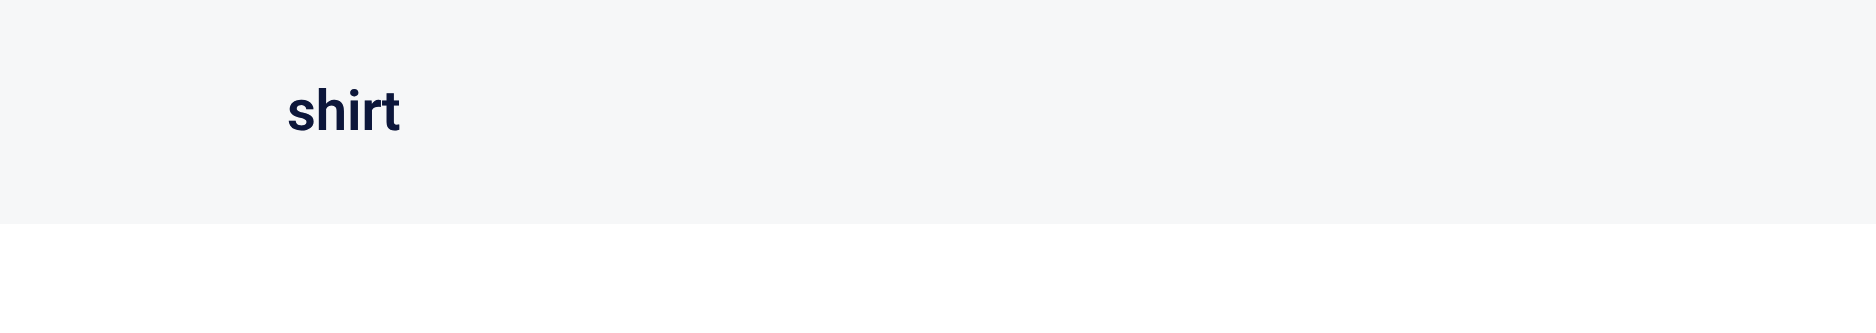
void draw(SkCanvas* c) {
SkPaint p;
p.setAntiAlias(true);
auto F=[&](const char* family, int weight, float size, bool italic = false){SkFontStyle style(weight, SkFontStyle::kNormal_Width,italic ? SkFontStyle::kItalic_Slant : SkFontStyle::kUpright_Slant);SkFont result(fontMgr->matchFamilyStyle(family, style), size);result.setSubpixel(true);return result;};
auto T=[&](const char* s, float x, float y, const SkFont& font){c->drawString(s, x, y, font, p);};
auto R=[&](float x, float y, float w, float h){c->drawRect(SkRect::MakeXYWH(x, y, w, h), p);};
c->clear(0xffffffff);
p.setColor(0xfff6f7f8);
R(0,0,1876,224);
auto f1 = F("Roboto",600,56);
p.setColor(0xff0d173b);
T("shirt",287,130,f1);
}
